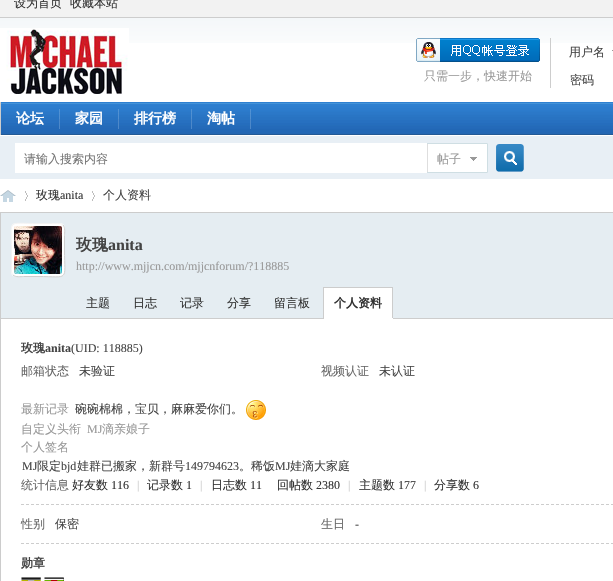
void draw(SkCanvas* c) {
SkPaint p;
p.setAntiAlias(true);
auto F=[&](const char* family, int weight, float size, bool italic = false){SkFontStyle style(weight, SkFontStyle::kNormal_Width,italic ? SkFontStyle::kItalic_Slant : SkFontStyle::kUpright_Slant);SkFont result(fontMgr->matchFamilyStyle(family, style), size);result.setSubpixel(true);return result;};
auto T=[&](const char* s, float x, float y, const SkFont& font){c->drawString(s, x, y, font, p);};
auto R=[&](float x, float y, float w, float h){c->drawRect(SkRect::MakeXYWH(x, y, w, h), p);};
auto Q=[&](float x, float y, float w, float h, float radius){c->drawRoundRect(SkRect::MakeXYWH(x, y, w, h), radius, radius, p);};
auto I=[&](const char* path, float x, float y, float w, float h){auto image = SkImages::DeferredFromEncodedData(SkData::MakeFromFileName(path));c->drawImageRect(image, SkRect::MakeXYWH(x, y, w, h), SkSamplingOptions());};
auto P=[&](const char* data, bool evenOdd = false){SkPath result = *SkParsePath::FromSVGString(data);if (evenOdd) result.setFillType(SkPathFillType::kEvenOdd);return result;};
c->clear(0xffffffff);
I("1.png",0,18,613,25);
p.setColor(0xfff2f2f2);
R(0,0,613,17);
p.setColor(0xffcdcdcd);
R(0,17,613,1);
auto f1 = F("WenQuanYi Zen Hei",500,12);
p.setColor(0xff333333);
T("设为首页",14,7,f1);
T("收藏本站",70,7,f1);
I("2.png",0,28,129,66);
p.setColor(0xffcdcdcd);
R(550,38,1,50);
I("3.png",416,38,124,24);
p.setColor(0xff999999);
T("只需一步，快速开始",424,80,f1);
R(612,50,1,1);
p.setColor(0xff444444);
T("用户名",569,56,f1);
T("密码",570,84,f1);
I("4.png",1,102,612,33);
p.setColor(0xffcdcdcd);
R(0,102,1,33);
I("5.png",59,109,1,20);
auto f2 = F("WenQuanYi Zen Hei",700,14);
p.setColor(0xffffffff);
T("论坛",16,123,f2);
I("5.png",118,109,1,20);
T("家园",75,123,f2);
I("5.png",191,109,1,20);
T("排行榜",134,123,f2);
I("5.png",250,109,1,20);
T("淘帖",207,123,f2);
p.setColor(0xffe8eff5);
R(0,136,613,43);
p.setColor(0xffffffff);
R(15,143,412,30);
I("6.png",496,144,28,28);
p.setColor(0xff757575);
T("请输入搜索内容",24,163,f1);
I("7.png",427,143,61,30);
p.setColor(0xff999999);
T("帖子",437,163,f1);
I("8.png",0,190,16,12);
I("9.png",25,191,3,10);
p.setColor(0xff333333);
T("玫瑰",36,199,f1);
auto f3 = F("Liberation Serif",400,12);
T("anita",60,199,f3);
I("9.png",92,191,3,10);
p.setColor(0xff444444);
T("个人资料",103,199,f1);
p.setColor(0xffe5edf2);
R(1,213,612,105);
p.setColor(0xffcccccc);
R(0,212,613,1);
R(0,212,1,369);
p.setColor(0xffffffff);
Q(11,223,54,54,5);
p.setStroke(true);
p.setStrokeWidth(1);
p.setColor(0xffcdcdcd);
c->drawPath(P("M63 225c2.5 2.5 1.5 8 1.5 10.5v14.5c0 32 5.5 26.5-26.5 26.5h-14.5c-2.5 0-8 1-10.5-1.5"),p);
p.setColor(0xfff2f2f2);
c->drawPath(P("M13 275c-2.5-2.5-1.5-8-1.5-10.5v-14.5c0-32-5.5-26.5 26.5-26.5h14.5c2.5 0 8-1 10.5 1.5"),p);
I("10.png",14,226,48,48);
auto f4 = F("WenQuanYi Zen Hei",700,16);
p.setStroke(false);
p.setColor(0xff444444);
T("玫瑰",76,250,f4);
auto f5 = F("Liberation Serif",700,16);
T("anita",108,250,f5);
p.setColor(0xff999999);
T("http://www.mjjcn.com/mjjcnforum/?118885",76,270,f3);
p.setColor(0xffcdcdcd);
R(1,318,612,1);
p.setColor(0xff333333);
T("主题",86,307,f1);
T("日志",133,307,f1);
T("记录",180,307,f1);
T("分享",227,307,f1);
T("留言板",274,307,f1);
p.setColor(0xffffffff);
R(324,288,68,30);
p.setColor(0xffcccccc);
R(323,287,70,1);
R(392,287,1,32);
p.setColor(0xffffffff);
R(323,318,70,1);
p.setColor(0xffcccccc);
R(323,287,1,32);
auto f6 = F("WenQuanYi Zen Hei",700,12);
p.setColor(0xff333333);
T("个人资料",334,307,f6);
p.setStroke(true);
p.setColor(0xffcdcdcd);
p.setPathEffect(SkDashPathEffect::Make({{3,2}}, 0));
c->drawPath(P("M21 543.5h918"),p);
p.setPathEffect(nullptr);
p.setStroke(false);
p.setColor(0xff444444);
T("玫瑰",21,352,f6);
auto f7 = F("Liberation Serif",700,12);
T("anita",45,352,f7);
T("(UID: 118885)",71,352,f3);
p.setColor(0xff666666);
T("邮箱状态",21,375,f1);
p.setColor(0xff444444);
T("未验证",79,375,f1);
p.setColor(0xff666666);
T("视频认证",321,375,f1);
p.setColor(0xff444444);
T("未认证",379,375,f1);
p.setColor(0xff999999);
T("最新记录",21,413,f1);
p.setColor(0xff444444);
T("碗碗棉棉，宝贝，麻麻爱你们。",75,413,f1);
I("11.png",246,400,20,20);
p.setColor(0xff999999);
T("自定义头衔",21,433,f1);
T("MJ",87,433,f3);
T("滴亲娘子",102,433,f1);
T("个人签名",21,451,f1);
p.setColor(0xff444444);
T("MJ",22,470,f3);
T("限定",37,470,f1);
T("bjd",61,470,f3);
T("娃群已搬家，新群号",77,470,f1);
T("149794623",185,470,f3);
T("。稀饭",239,470,f1);
T("MJ",275,470,f3);
T("娃滴大家庭",290,470,f1);
p.setStroke(true);
p.setColor(0xffcdcdcd);
p.setPathEffect(SkDashPathEffect::Make({{3,2}}, 0));
c->drawPath(P("M21 504.5h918"),p);
p.setPathEffect(nullptr);
p.setStroke(false);
p.setColor(0xff666666);
T("统计信息",21,489,f1);
p.setColor(0xff333333);
T("好友数",72,489,f1);
T("116",111,489,f3);
p.setColor(0xffcccccc);
T("|",137,489,f3);
p.setColor(0xff333333);
T("记录数",147,489,f1);
T("1",186,489,f3);
p.setColor(0xffcccccc);
T("|",200,489,f3);
p.setColor(0xff333333);
T("日志数",211,489,f1);
T("11",250,489,f3);
T("回帖数",277,489,f1);
T("2380",316,489,f3);
p.setColor(0xffcccccc);
T("|",348,489,f3);
p.setColor(0xff333333);
T("主题数",359,489,f1);
T("177",398,489,f3);
p.setColor(0xffcccccc);
T("|",424,489,f3);
p.setColor(0xff333333);
T("分享数",434,489,f1);
T("6",473,489,f3);
p.setColor(0xff666666);
T("性别",21,528,f1);
p.setColor(0xff444444);
T("保密",55,528,f1);
p.setColor(0xff666666);
T("生日",321,528,f1);
p.setColor(0xff444444);
T("-",355,528,f3);
T("勋章",21,567,f6);
I("12.png",21,577,20,4);
I("13.png",44,577,20,4);
}
